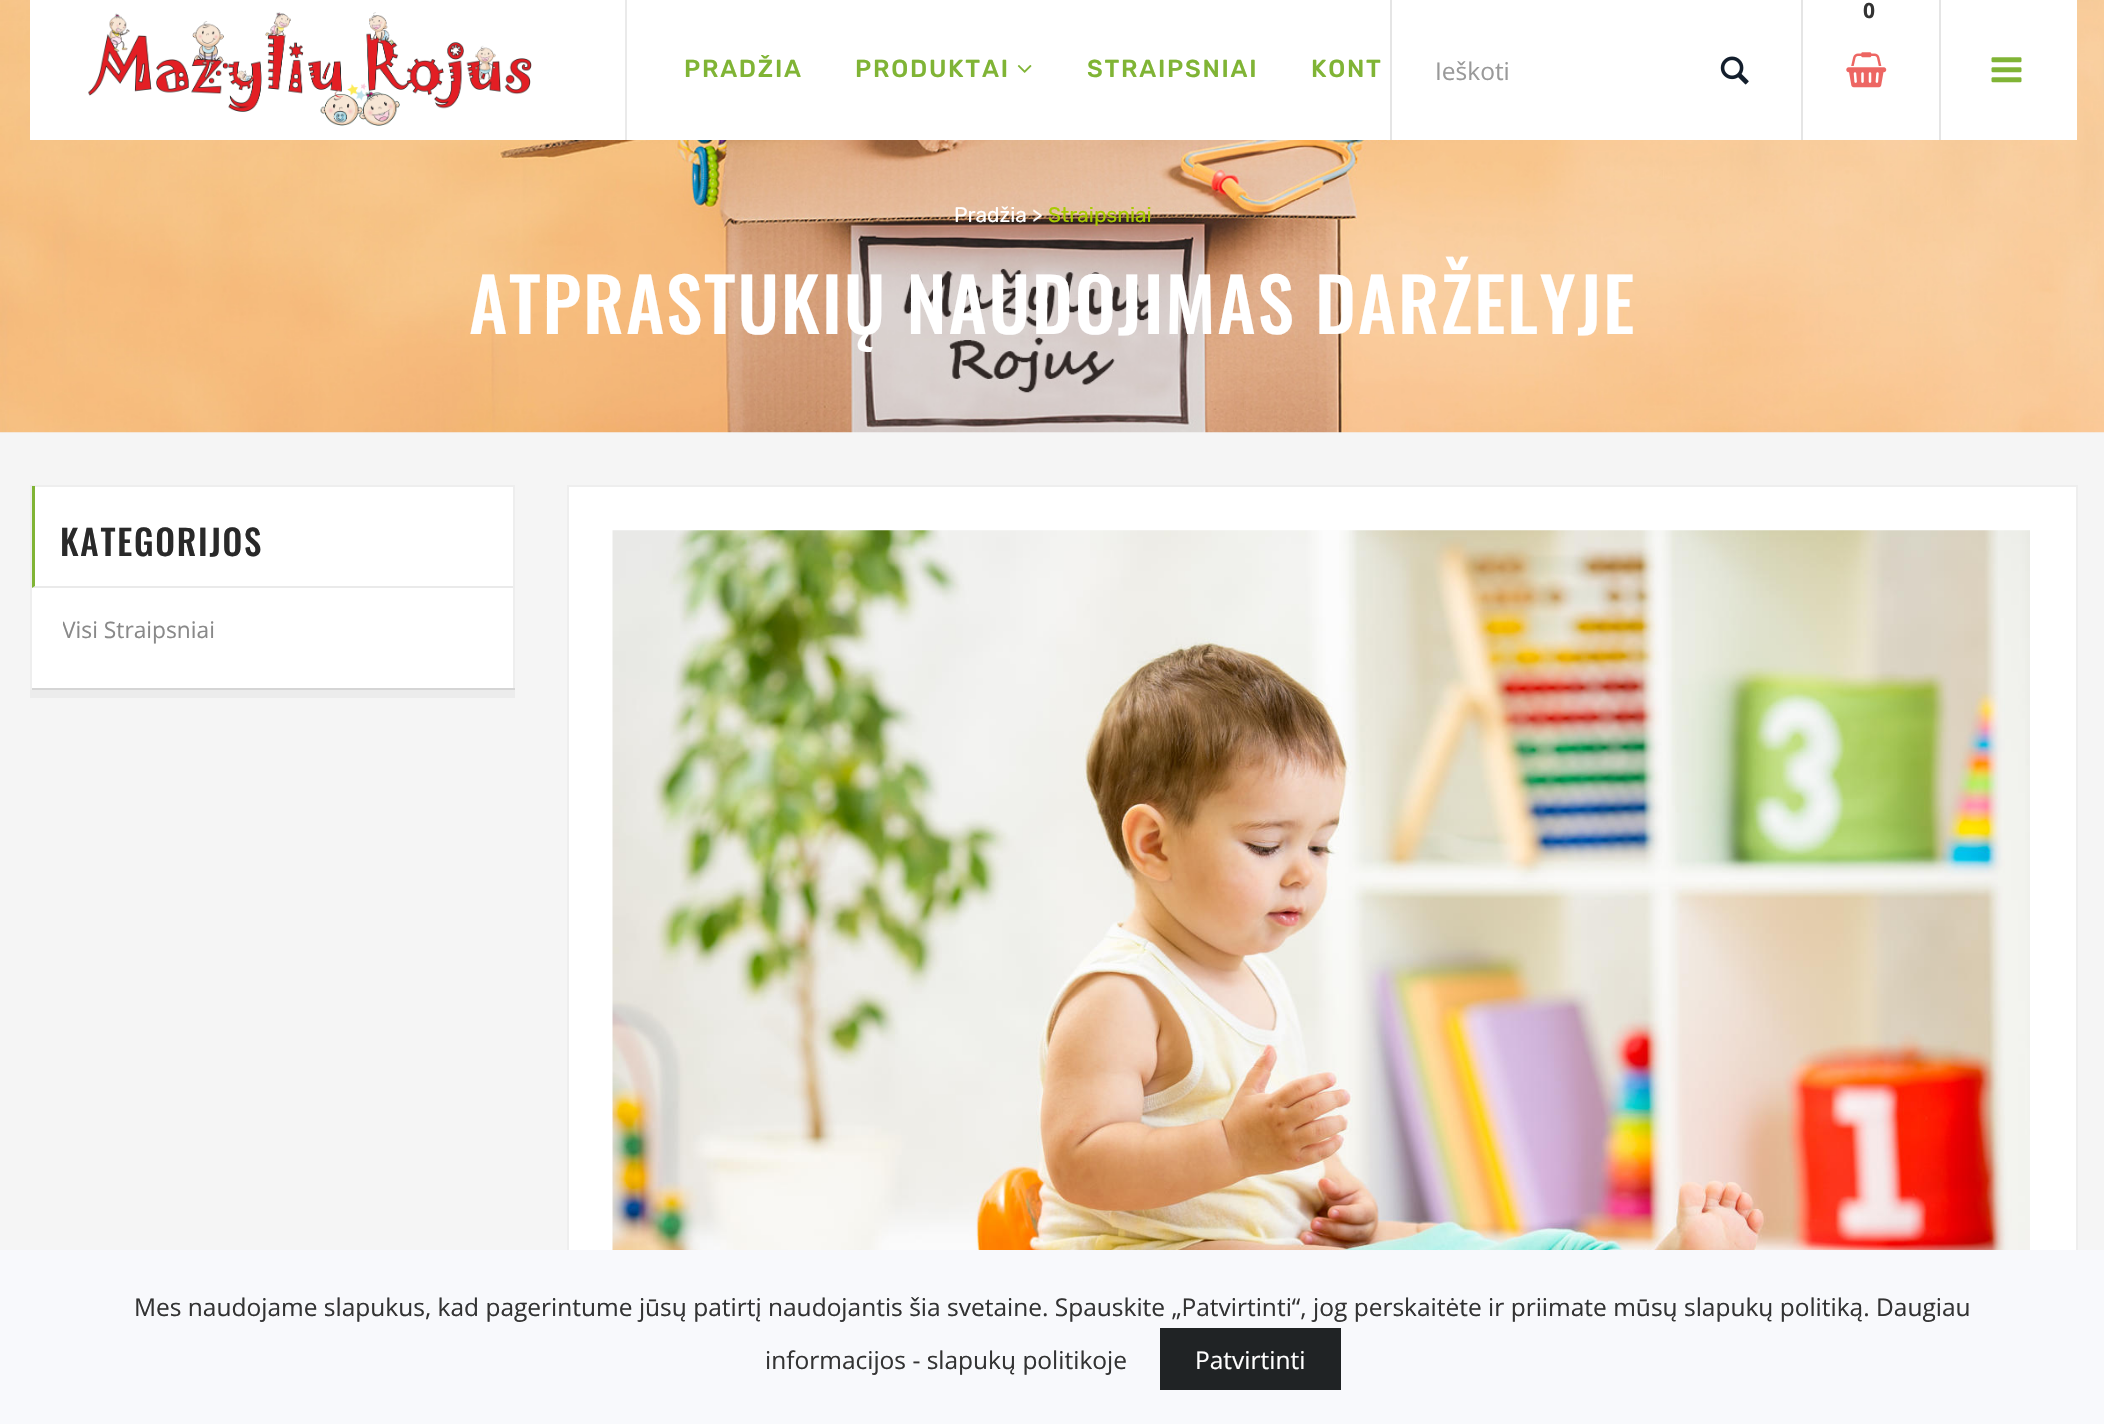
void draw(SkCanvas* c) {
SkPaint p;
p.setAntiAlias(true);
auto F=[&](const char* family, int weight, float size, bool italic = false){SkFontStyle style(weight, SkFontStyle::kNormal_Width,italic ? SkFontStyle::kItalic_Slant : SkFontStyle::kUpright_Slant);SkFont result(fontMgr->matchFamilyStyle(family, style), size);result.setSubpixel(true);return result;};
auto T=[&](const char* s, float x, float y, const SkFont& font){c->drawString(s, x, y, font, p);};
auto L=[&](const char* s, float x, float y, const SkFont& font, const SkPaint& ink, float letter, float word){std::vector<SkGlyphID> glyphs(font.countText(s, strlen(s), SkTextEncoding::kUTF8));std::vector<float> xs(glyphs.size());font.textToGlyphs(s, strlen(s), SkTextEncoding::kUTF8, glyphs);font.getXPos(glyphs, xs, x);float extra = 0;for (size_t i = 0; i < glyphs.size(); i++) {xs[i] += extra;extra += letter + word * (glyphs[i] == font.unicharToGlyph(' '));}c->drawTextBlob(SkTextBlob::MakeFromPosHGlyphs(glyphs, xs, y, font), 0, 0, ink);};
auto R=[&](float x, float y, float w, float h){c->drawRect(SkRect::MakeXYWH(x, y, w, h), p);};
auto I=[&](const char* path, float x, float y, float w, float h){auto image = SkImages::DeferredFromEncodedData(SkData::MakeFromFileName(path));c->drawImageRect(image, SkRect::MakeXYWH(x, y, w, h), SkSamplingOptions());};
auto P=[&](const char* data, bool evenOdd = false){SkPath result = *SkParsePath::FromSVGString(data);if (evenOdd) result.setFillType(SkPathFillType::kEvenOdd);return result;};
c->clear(0xfff5f5f5);
I("6.png",0,0,2104,433);
p.setColor(0xffffffff);
R(30,0,2047,140);
p.setColor(0xffeaeaea);
R(625,0,2,140);
I("1.png",88,12,444,114);
auto f1 = F("Rubik",500,24.5);
p.setColor(0xff80b435);
L("PRADŽIA",684,77,f1,p,1.75,0);
L("PRODUKTAI",855,77,f1,p,1.75,0);
I("2.png",1017,65,15,8);
L("STRAIPSNIAI",1087,77,f1,p,1.75,0);
L("KONT",1311,77,f1,p,1.75,0);
p.setColor(0xffe5e5e5);
R(1801,0,2,140);
auto f2 = F("Open Sans",700,21);
p.setColor(0xff333333);
L("0",1863,18,f2,p,1,0);
I("3.png",1846,52,41,36);
p.setColor(0xffe5e5e5);
R(1939,0,2,140);
I("4.png",1991,57,31,26);
R(1390,0,2,140);
auto f3 = F("Open Sans",400,24.5);
p.setColor(0xff999999);
T("Ieškoti",1435,80,f3);
I("5.png",1720,56,29,29);
auto f4 = F("Rubik",400,21);
p.setColor(0xffffffff);
T("Pradžia >",954,222,f4);
p.setColor(0xffa8ca01);
T("Straipsniai",1048,222,f4);
auto f5 = F("Oswald",500,73.5);
p.setColor(0xffffffff);
L("ATPRASTUKIŲ NAUDOJIMAS DARŽELYJE",469,334,f5,p,1.75,0);
p.setColor(0xffececec);
c->drawPath(P("M30 690v8h485v-204h-1v196z"),p);
p.setColor(0xffffffff);
R(32,487,481,201);
p.setColor(0xffeeeeee);
R(30,485,485,2);
R(513,485,2,205);
p.setColor(0xffd5d5d5);
R(30,688,485,2);
p.setColor(0xffeeeeee);
R(30,485,2,205);
p.setColor(0xffeaeaea);
c->drawPath(P("M513 588h-481l3-2h478z"),p);
p.setColor(0xff80b435);
c->drawPath(P("M32 588v-102h3v100z"),p);
auto f6 = F("Oswald",500,35);
p.setColor(0xff292929);
L("KATEGORIJOS",60,556,f6,p,1.75,0);
c->save();
c->clipRect(SkRect::MakeXYWH(63,588,418,68));
auto f7 = F("Open Sans",400,22.75);
p.setColor(0xff898989);
T("Visi Straipsniai",62,638,f7);
c->restore();
p.setColor(0xffffffff);
R(569,487,1507,763);
p.setColor(0xffeeeeee);
R(567,485,1510,2);
R(2076,485,2,765);
R(567,485,2,765);
I("7.png",612,530,1418,720);
p.setColor(0xfff8f9fc);
R(0,1250,2104,174);
p.setColor(0xff333333);
T("Mes naudojame slapukus, kad pagerintume jūsų patirtį naudojantis šia svetaine. Spauskite „Patvirtinti“, jog perskaitėte ir priimate mūsų slapukų politiką. Daugiau",134,1316,f3);
T("informacijos - slapukų politikoje",765,1369,f3);
p.setColor(0xff202325);
R(1160,1328,181,62);
p.setColor(0xffffffff);
T("Patvirtinti",1195,1369,f3);
}
